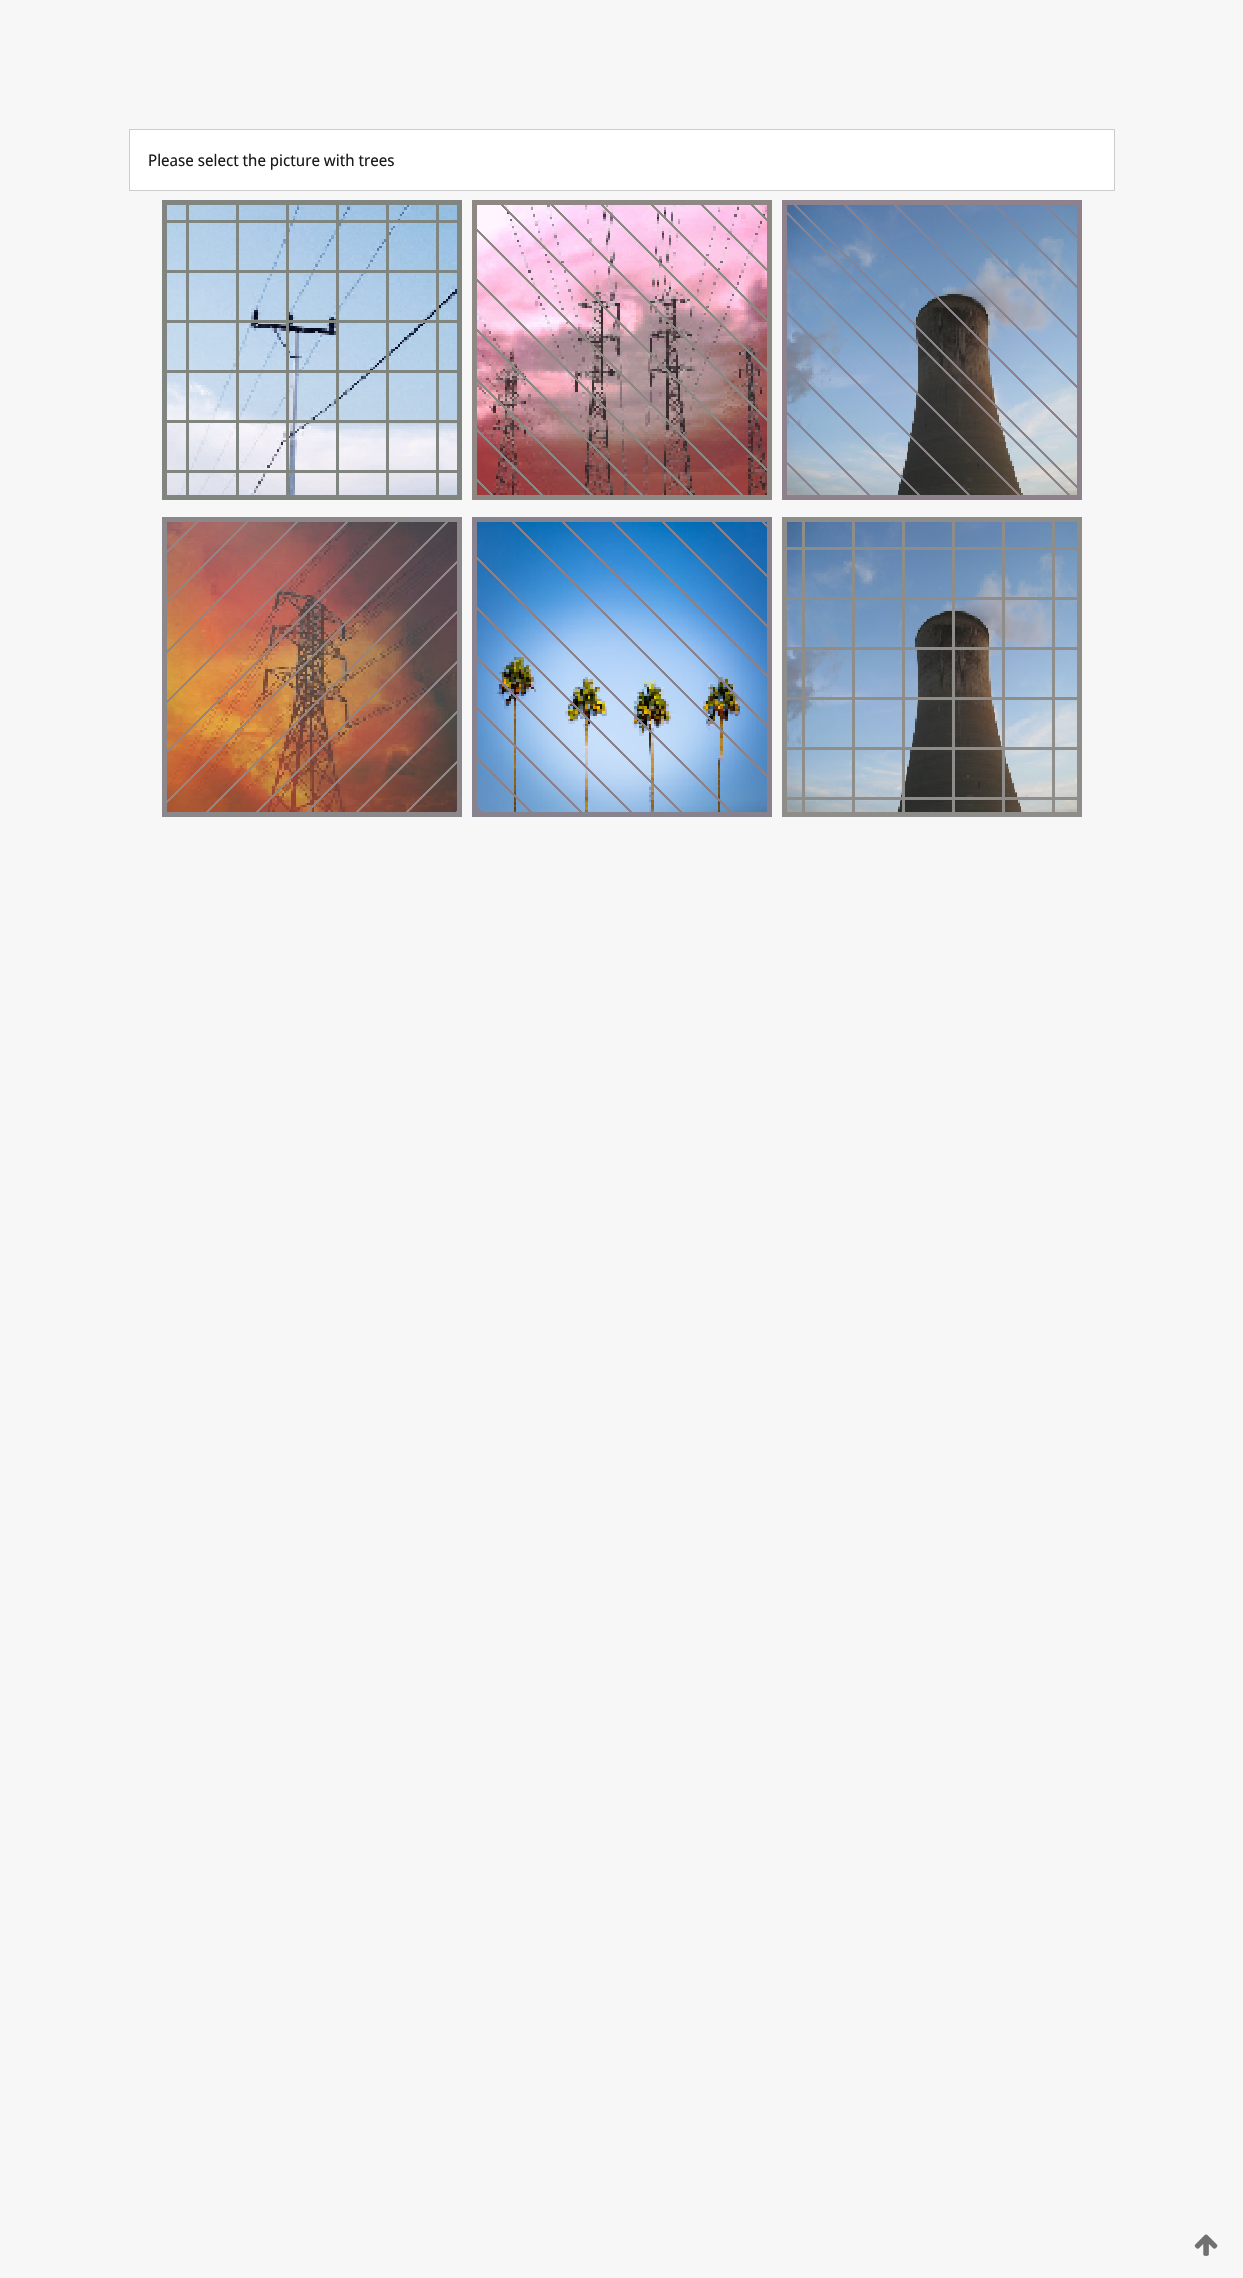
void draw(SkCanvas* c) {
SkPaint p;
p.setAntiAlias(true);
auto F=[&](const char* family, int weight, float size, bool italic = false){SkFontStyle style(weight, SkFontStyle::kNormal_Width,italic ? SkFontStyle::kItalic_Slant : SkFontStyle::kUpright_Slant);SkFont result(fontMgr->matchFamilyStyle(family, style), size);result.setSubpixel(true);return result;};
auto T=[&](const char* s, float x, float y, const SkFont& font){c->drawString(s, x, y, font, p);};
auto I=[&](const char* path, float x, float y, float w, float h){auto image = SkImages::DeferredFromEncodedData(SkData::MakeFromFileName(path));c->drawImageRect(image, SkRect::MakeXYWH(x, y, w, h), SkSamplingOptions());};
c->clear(0xfff7f7f7);
p.setColor(0xffffffff);
c->drawRect(SkRect::MakeXYWH(129.5,129.5,985,61),p);
p.setStroke(true);
p.setStrokeWidth(1);
p.setColor(0xffcccccc);
c->drawRect(SkRect::MakeXYWH(129.5,129.5,985,61),p);
auto f1 = F("Noto Sans Display",400,16);
p.setStroke(false);
p.setColor(0xff1a1a1a);
T("Please select the picture with trees",148,166,f1);
I("1.png",162,200,300,300);
I("2.png",472,200,300,300);
I("3.png",782,200,300,300);
I("4.png",162,517,300,300);
I("5.png",472,517,300,300);
I("6.png",782,517,300,300);
I("7.png",1194,2234,24,22);
}
